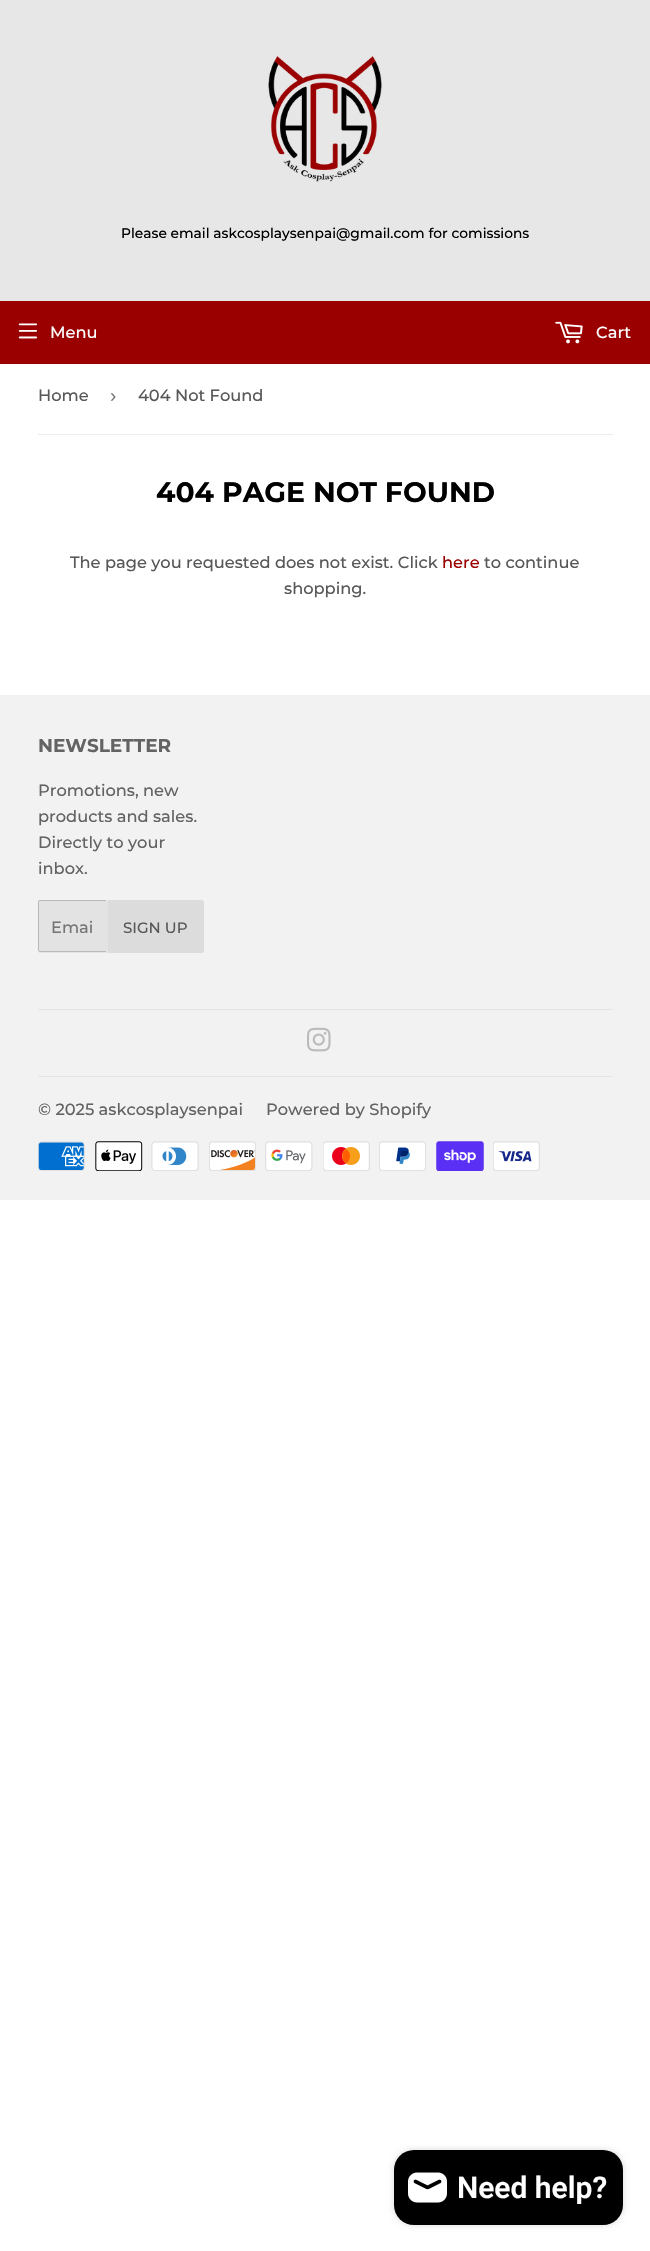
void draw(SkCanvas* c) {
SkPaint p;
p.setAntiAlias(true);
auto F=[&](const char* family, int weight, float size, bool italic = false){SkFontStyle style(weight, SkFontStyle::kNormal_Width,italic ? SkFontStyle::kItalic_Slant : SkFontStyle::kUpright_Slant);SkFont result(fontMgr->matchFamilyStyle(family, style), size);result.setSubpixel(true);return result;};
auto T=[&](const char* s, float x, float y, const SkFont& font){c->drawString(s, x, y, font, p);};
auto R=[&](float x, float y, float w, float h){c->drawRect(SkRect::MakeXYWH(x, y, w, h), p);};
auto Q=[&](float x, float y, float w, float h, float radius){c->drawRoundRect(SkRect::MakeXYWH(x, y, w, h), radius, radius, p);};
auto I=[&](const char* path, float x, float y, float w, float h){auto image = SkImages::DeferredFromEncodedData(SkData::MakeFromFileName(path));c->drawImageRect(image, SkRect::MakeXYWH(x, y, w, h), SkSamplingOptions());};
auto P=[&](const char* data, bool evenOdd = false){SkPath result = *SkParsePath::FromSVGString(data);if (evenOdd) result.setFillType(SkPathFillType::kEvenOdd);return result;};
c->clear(0xffffffff);
p.setColor(0xffe7e7e7);
R(0,0,650,301);
I("1.png",268,56,114,126);
auto f1 = F("Montserrat",500,13.8);
p.setColor(0xff000000);
T("Please email askcosplaysenpai@gmail.com for comissions",121,238,f1);
p.setColor(0xff9b0000);
R(0,301,650,63);
I("2.png",18,323,20,16);
auto f2 = F("Montserrat",500,16.25);
p.setColor(0xffffffff);
T("Menu",50,338,f2);
I("3.png",555,321,28,23);
T("Cart",596,338,f2);
p.setColor(0xffececec);
R(38,434,575,1);
p.setColor(0xff585858);
T("Home",38,401,f2);
auto f3 = F("Liberation Sans",400,19);
p.setColor(0xff767676);
T("›",110,402,f3);
p.setColor(0xff585858);
T("404 Not Found",138,401,f2);
auto f4 = F("Montserrat",700,28.2);
p.setColor(0xff000000);
T("404 PAGE NOT FOUND",156,502,f4);
p.setColor(0xff585858);
T("The page you requested does not exist. Click",70,568,f2);
p.setColor(0xff9b0000);
T("here",442,568,f2);
p.setColor(0xff585858);
T("to continue",484,568,f2);
T("shopping.",284,594,f2);
p.setColor(0xfff2f2f2);
R(0,695,650,505);
auto f5 = F("Montserrat",700,18.5);
p.setColor(0xff636363);
T("NEWSLETTER",38,752,f5);
T("Promotions, new",38,796,f2);
T("products and sales.",38,822,f2);
T("Directly to your",38,848,f2);
T("inbox.",38,874,f2);
p.setColor(0xffe3e3e3);
Q(38,900,70,53,2.5);
p.setColor(0xffb9b9b9);
R(39,900,67,1);
R(39,951,67,1);
R(38,901,1,50);
p.setColor(0xff767676);
T("Emai",51,933,f2);
p.setColor(0xffdcdcdc);
c->drawPath(P("M108 900h93.5c1.5 0 2.5 1 2.5 2.5v48c0 1.5-1 2.5-2.5 2.5h-93.5z"),p);
auto f6 = F("Montserrat",500,15);
p.setColor(0xff585858);
T("SIGN UP",123,933,f6);
p.setColor(0xffe5e5e5);
R(38,1009,575,1);
I("4.png",307,1027,24,25);
R(38,1076,575,1);
p.setColor(0xff636363);
T("© 2025 askcosplaysenpai",38,1115,f2);
T("Powered by Shopify",266,1115,f2);
I("5.png",38,1141,47,30);
I("6.png",95,1141,48,30);
I("7.png",151,1141,48,30);
I("8.png",209,1141,47,30);
I("9.png",265,1141,48,30);
I("10.png",323,1141,47,30);
I("11.png",379,1141,47,30);
I("12.png",436,1141,48,30);
I("13.png",493,1141,47,30);
p.setColor(0x26000000);
p.setMaskFilter(SkMaskFilter::MakeBlur(kNormal_SkBlurStyle, 3));
c->drawRoundRect(SkRect::MakeXYWH(394,2150,229,75),20,20,p);
p.setMaskFilter(nullptr);
p.setColor(0xff000000);
Q(394,2150,229,75,20);
I("14.png",408,2172,39,31);
auto f7 = F("Roboto",600,30);
p.setColor(0xffffffff);
T("Need help?",457,2198,f7);
}
